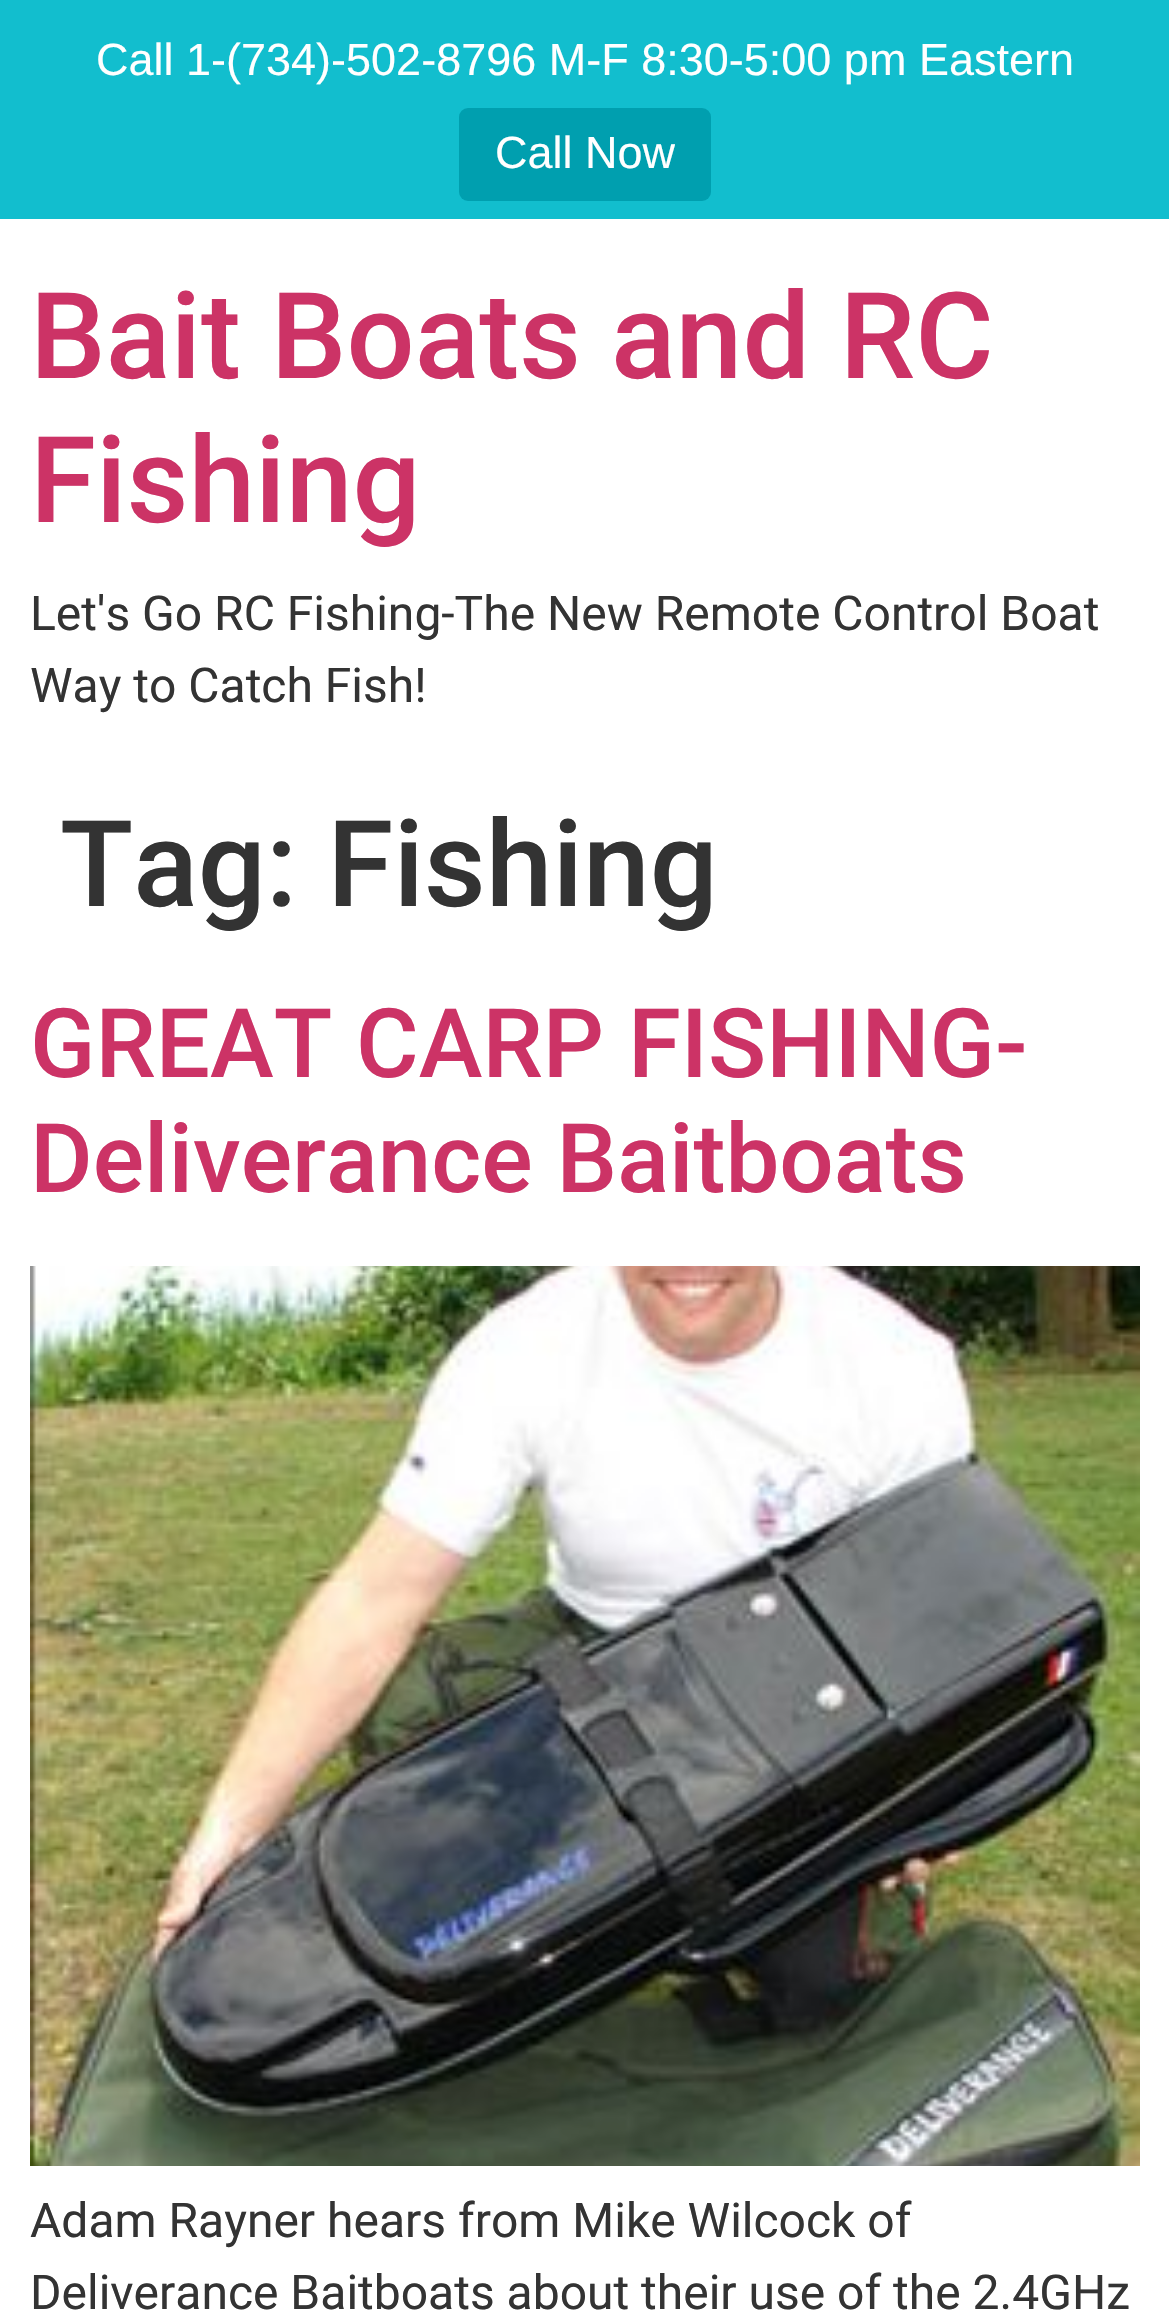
void draw(SkCanvas* c) {
SkPaint p;
p.setAntiAlias(true);
auto F=[&](const char* family, int weight, float size, bool italic = false){SkFontStyle style(weight, SkFontStyle::kNormal_Width,italic ? SkFontStyle::kItalic_Slant : SkFontStyle::kUpright_Slant);SkFont result(fontMgr->matchFamilyStyle(family, style), size);result.setSubpixel(true);return result;};
auto T=[&](const char* s, float x, float y, const SkFont& font){c->drawString(s, x, y, font, p);};
auto R=[&](float x, float y, float w, float h){c->drawRect(SkRect::MakeXYWH(x, y, w, h), p);};
auto Q=[&](float x, float y, float w, float h, float radius){c->drawRoundRect(SkRect::MakeXYWH(x, y, w, h), radius, radius, p);};
auto I=[&](const char* path, float x, float y, float w, float h){auto image = SkImages::DeferredFromEncodedData(SkData::MakeFromFileName(path));c->drawImageRect(image, SkRect::MakeXYWH(x, y, w, h), SkSamplingOptions());};
c->clear(0xffffffff);
p.setColor(0xff12bece);
R(0,0,1169,219);
auto f1 = F("Liberation Sans",400,45);
p.setColor(0xffffffff);
T("Call 1-(734)-502-8796 M-F 8:30-5:00 pm Eastern",96,75,f1);
p.setColor(0xff009faf);
Q(459,108,252,93,9);
p.setColor(0xffffffff);
T("Call Now",495,168,f1);
auto f2 = F("Roboto",500,120);
p.setColor(0xffcc3366);
T("Bait Boats and RC",30,378,f2);
T("Fishing",30,522,f2);
auto f3 = F("Roboto",400,48);
p.setColor(0xff333333);
T("Let's Go RC Fishing-The New Remote Control Boat",30,630,f3);
T("Way to Catch Fish!",30,702,f3);
T("Tag: Fishing",60,906,f2);
auto f4 = F("Roboto",500,96);
p.setColor(0xffcc3366);
T("GREAT CARP FISHING-",30,1077,f4);
T("Deliverance Baitboats",30,1192,f4);
I("1.png",30,1266,1110,900);
p.setColor(0xff333333);
T("Adam Rayner hears from Mike Wilcock of",30,2237,f3);
T("Deliverance Baitboats about their use of the 2.4GHz",30,2309,f3);
}
